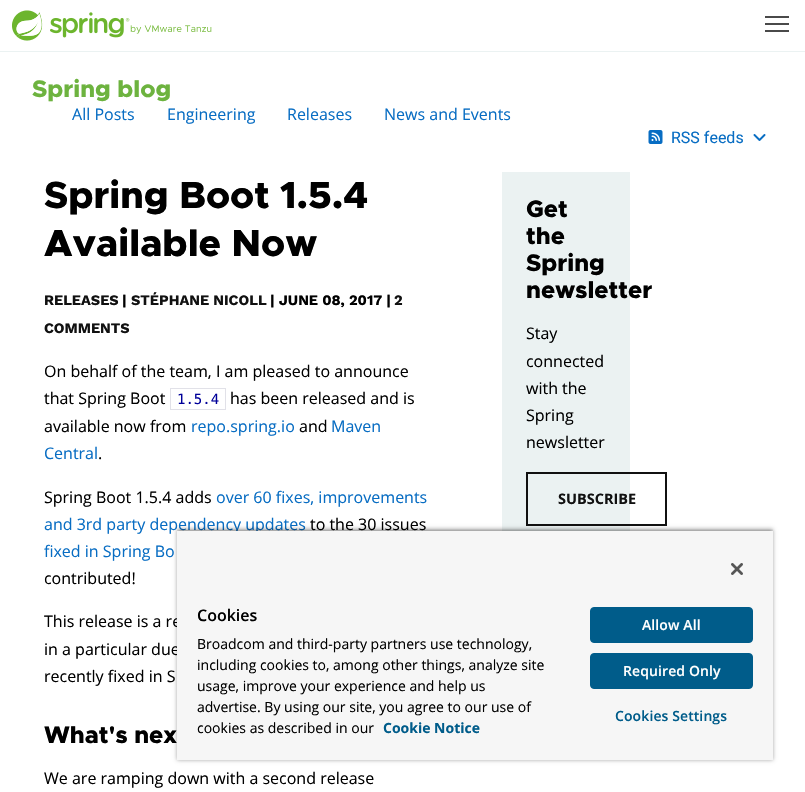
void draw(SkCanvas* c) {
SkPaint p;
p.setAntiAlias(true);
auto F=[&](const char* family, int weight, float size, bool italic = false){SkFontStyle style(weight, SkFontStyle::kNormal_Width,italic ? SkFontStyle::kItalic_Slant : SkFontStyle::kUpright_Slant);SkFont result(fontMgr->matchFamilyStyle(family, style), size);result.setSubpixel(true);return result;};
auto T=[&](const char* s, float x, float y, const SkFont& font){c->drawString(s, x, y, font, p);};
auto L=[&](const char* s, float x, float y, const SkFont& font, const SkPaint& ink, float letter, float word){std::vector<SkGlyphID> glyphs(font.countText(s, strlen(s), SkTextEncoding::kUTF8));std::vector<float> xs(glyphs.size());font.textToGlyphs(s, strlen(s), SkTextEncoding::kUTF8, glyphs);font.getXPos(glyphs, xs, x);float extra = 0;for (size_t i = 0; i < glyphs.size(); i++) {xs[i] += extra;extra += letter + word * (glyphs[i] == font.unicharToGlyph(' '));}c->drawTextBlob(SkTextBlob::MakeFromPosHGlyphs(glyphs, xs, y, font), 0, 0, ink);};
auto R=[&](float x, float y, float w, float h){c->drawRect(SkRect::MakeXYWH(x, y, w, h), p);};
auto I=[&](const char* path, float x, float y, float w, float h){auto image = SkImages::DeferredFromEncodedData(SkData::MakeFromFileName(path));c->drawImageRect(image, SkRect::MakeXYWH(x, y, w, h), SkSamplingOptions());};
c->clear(0xffffffff);
p.setColor(0xffebf2f2);
R(0,51,805,1);
I("1.png",12,10,200,31);
p.setColor(0xff4a4a4a);
R(765,16,24,2);
R(765,23,24,2);
R(765,30,24,2);
auto f1 = F("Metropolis",800,24);
p.setColor(0xff6db33f);
T("Spring blog",32,97,f1);
auto f2 = F("Open Sans",400,16);
p.setColor(0xff086dc3);
T("All Posts",72,120,f2);
T("Engineering",167,120,f2);
T("Releases",287,120,f2);
T("News and Events",384,120,f2);
I("2.png",648,130,15,14);
auto f3 = F("Roboto",400,16);
T("RSS feeds",671,143,f3);
I("3.png",753,134,13,7);
auto f4 = F("Metropolis",800,38);
p.setColor(0xff000000);
T("Spring Boot 1.5.4",44,208,f4);
T("Available Now",44,256,f4);
auto f5 = F("Work Sans",700,14.5);
p.setColor(0xff111111);
T("RELEASES",44,305,f5);
p.setColor(0xff000000);
T("|",122,305,f5);
p.setColor(0xff111111);
T("STÉPHANE NICOLL",131,305,f5);
p.setColor(0xff000000);
T("| JUNE 08, 2017 |",270,305,f5);
p.setColor(0xff111111);
T("2",394,305,f5);
T("COMMENTS",44,333,f5);
p.setColor(0xff000000);
T("On behalf of the team, I am pleased to announce",44,377,f2);
T("that Spring Boot",44,404,f2);
p.setStroke(true);
p.setStrokeWidth(1);
p.setColor(0xffe1e1e8);
c->drawRect(SkRect::MakeXYWH(170.5,388.5,55,21),p);
auto f6 = F("DejaVu Sans Mono",400,14);
p.setStroke(false);
p.setColor(0xff000099);
T("1.5.4",177,404,f6);
p.setColor(0xff000000);
T("has been released and is",230,404,f2);
T("available now from",44,432,f2);
p.setColor(0xff086dc3);
T("repo.spring.io",191,432,f2);
p.setColor(0xff000000);
T("and",299,432,f2);
p.setColor(0xff086dc3);
T("Maven",331,432,f2);
T("Central",44,459,f2);
p.setColor(0xff000000);
T(".",98,459,f2);
T("Spring Boot 1.5.4 adds",44,503,f2);
p.setColor(0xff086dc3);
T("over 60 fixes, improvements",216,503,f2);
T("and 3rd party dependency updates",44,530,f2);
p.setColor(0xff000000);
T("to the 30 issues",310,530,f2);
p.setColor(0xff086dc3);
T("fixed in Spring Bo",44,557,f2);
p.setColor(0xff000000);
T("contributed!",44,584,f2);
T("This release is a re",44,627,f2);
T("in a particular due",44,655,f2);
T("recently fixed in S",44,682,f2);
T("What's nex",44,743,f1);
T("We are ramping down with a second release",44,784,f2);
p.setColor(0xffebf2f2);
R(502,172,128,359);
p.setColor(0xff000000);
T("Get",526,217,f1);
T("the",526,244,f1);
T("Spring",526,271,f1);
T("newsletter",526,298,f1);
T("Stay",526,339,f2);
T("connected",526,367,f2);
T("with the",526,394,f2);
T("Spring",526,421,f2);
T("newsletter",526,448,f2);
p.setStroke(true);
p.setStrokeWidth(2);
p.setColor(0xff111111);
c->drawRect(SkRect::MakeXYWH(527,473,139,52),p);
auto f7 = F("Open Sans",700,14.5);
p.setStroke(false);
T("SUBSCRIBE",558,504,f7);
p.setColor(0x59000000);
p.setMaskFilter(SkMaskFilter::MakeBlur(kNormal_SkBlurStyle, 2));
c->drawRect(SkRect::MakeXYWH(177,529,596,231),p);
p.setMaskFilter(nullptr);
c->save();
c->clipRect(SkRect::MakeXYWH(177,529,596,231));
p.setColor(0x33000000);
p.setMaskFilter(SkMaskFilter::MakeBlur(kNormal_SkBlurStyle, 2));
c->drawRect(SkRect::MakeXYWH(177,531,596,229),p);
p.setMaskFilter(nullptr);
c->restore();
p.setColor(0xfff6f6f6);
R(177,531,596,229);
I("4.png",731,563,12,12);
auto f8 = F("Open Sans",600,16);
p.setColor(0xff000000);
T("Cookies",197,621,f8);
auto f9 = F("Open Sans",400,14);
T("Broadcom and third-party partners use technology,",197,649,f9);
T("including cookies to, among other things, analyze site",197,670,f9);
T("usage, improve your experience and help us",197,691,f9);
T("advertise. By using our site, you agree to our use of",197,712,f9);
T("cookies as described in our",197,733,f9);
auto f10 = F("Open Sans",700,14);
p.setColor(0xff005c8a);
T("Cookie Notice",383,733,f10);
c->drawRoundRect(SkRect::MakeXYWH(590.5,607.5,162,35),3.5,3.5,p);
p.setStroke(true);
p.setStrokeWidth(1);
c->drawRoundRect(SkRect::MakeXYWH(590.5,607.5,162,35),3.5,3.5,p);
auto f11 = F("Open Sans",600,14);
p.setStroke(false);
p.setColor(0xffffffff);
L("Allow All",642,630,f11,p,.1,0);
p.setColor(0xff005c8a);
c->drawRoundRect(SkRect::MakeXYWH(590.5,653.5,162,35),3.5,3.5,p);
p.setStroke(true);
c->drawRoundRect(SkRect::MakeXYWH(590.5,653.5,162,35),3.5,3.5,p);
p.setStroke(false);
p.setColor(0xffffffff);
L("Required Only",623,676,f11,p,.1,0);
p.setColor(0xff005c8a);
L("Cookies Settings",615,721,f11,p,.1,0);
}
